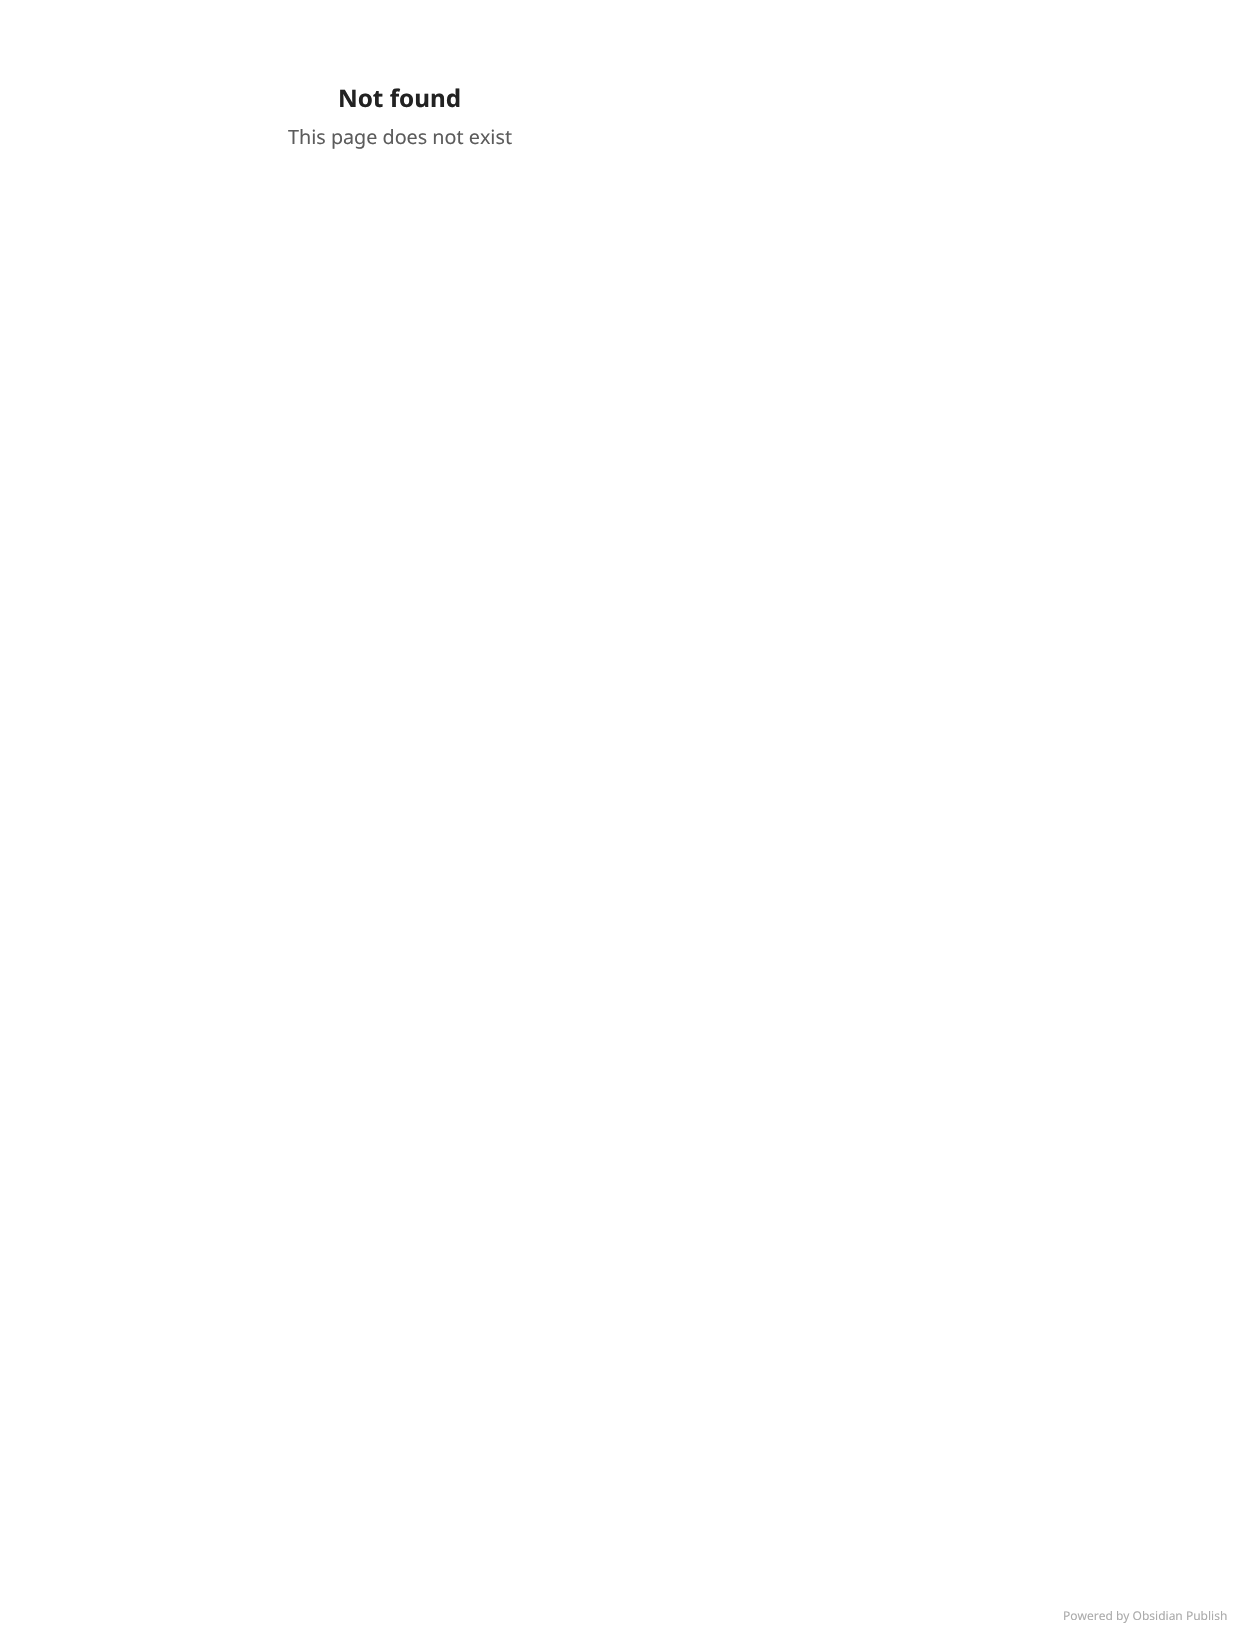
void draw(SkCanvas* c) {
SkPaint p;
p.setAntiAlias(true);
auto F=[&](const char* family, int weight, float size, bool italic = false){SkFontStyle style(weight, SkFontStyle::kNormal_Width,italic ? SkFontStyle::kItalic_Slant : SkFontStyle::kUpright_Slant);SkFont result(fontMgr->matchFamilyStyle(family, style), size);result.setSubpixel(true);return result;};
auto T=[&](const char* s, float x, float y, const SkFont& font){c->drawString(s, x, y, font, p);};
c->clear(0xffffffff);
auto f1 = F("Noto Sans",700,24.25);
p.setColor(0xff222222);
T("Not found",338,107,f1);
auto f2 = F("Noto Sans",400,19.75);
p.setColor(0xff5c5c5c);
T("This page does not exist",288,144,f2);
auto f3 = F("Noto Sans",400,12);
p.setColor(0xffababab);
T("Powered by Obsidian Publish",1063,1620,f3);
}
